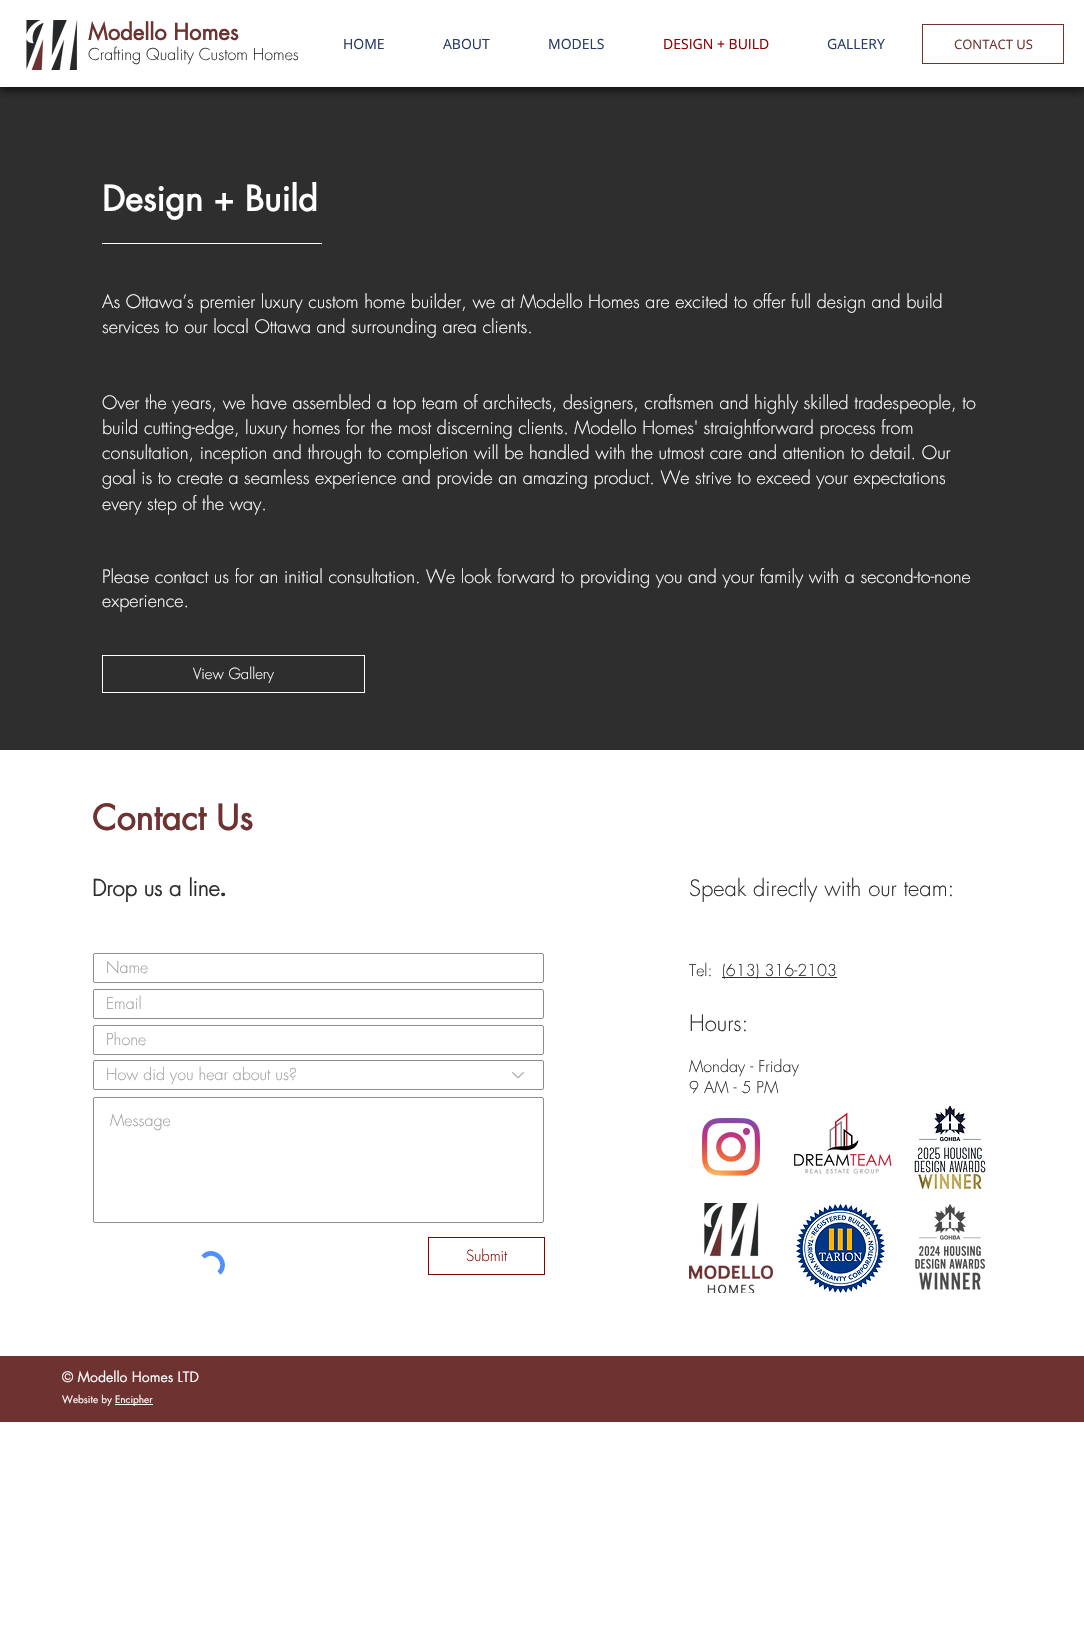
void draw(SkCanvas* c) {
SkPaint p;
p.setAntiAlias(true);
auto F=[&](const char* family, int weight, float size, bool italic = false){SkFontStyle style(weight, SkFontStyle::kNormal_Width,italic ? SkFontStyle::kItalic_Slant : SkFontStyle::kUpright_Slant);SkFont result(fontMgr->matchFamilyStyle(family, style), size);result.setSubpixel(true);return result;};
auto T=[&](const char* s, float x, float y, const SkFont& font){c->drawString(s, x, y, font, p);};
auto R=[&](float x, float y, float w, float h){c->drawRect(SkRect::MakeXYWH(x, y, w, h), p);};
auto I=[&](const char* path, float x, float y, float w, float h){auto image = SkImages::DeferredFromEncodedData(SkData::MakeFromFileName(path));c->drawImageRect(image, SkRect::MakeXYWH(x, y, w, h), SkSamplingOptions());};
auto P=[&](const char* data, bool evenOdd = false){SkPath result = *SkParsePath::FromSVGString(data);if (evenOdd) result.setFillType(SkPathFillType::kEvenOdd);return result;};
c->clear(0xffffffff);
p.setColor(0xff2f2e2e);
R(0,87,1084,663);
c->save();
c->clipRect(SkRect::MakeXYWH(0,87,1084,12));
p.setColor(0xb3000000);
p.setMaskFilter(SkMaskFilter::MakeBlur(kNormal_SkBlurStyle, 5));
c->drawRect(SkRect::MakeXYWH(-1,1,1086,89),p);
p.setMaskFilter(nullptr);
c->restore();
I("1.png",26,20,52,50);
auto f1 = F("futura",700,22);
p.setColor(0xff6e3331);
T("Modello Homes",88,40,f1);
auto f2 = F("futura",300,16);
p.setColor(0xff2f2e2e);
T("Crafting Quality Custom Homes",88,60,f2);
auto f3 = F("Open Sans",400,14);
p.setColor(0xff283b62);
T("HOME",343,49,f3);
T("ABOUT",443,49,f3);
T("MODELS",548,49,f3);
p.setColor(0xff8b0000);
T("DESIGN + BUILD",663,49,f3);
p.setColor(0xff283b62);
T("GALLERY",827,49,f3);
p.setStroke(true);
p.setStrokeWidth(1);
p.setColor(0xff6e3331);
c->drawRect(SkRect::MakeXYWH(922.5,24.5,141,39),p);
auto f4 = F("Open Sans",400,13);
p.setStroke(false);
T("CONTACT US",954,49,f4);
auto f5 = F("futura",700,34);
p.setColor(0xffffffff);
T("Design + Build",102,211,f5);
R(102,243,220,1);
auto f6 = F("futura",300,18);
T("As Ottawa’s premier luxury custom home builder, we at Modello Homes are excited to offer full design and build",102,308,f6);
T("services to our local Ottawa and surrounding area clients.",102,333,f6);
T("Over the years, we have assembled a top team of architects, designers, craftsmen and highly skilled tradespeople, to",102,409,f6);
T("build cutting-edge, luxury homes for the most discerning clients. Modello Homes' straightforward process from",102,434,f6);
T("consultation, inception and through to completion will be handled with the utmost care and attention to detail. Our",102,459,f6);
T("goal is to create a seamless experience and provide an amazing product. We strive to exceed your expectations",102,484,f6);
T("every step of the way.",102,510,f6);
T("Please contact us for an initial consultation. We look forward to providing you and your family with a second-to-none",102,583,f6);
T("experience.",102,607,f6);
p.setStroke(true);
c->drawRect(SkRect::MakeXYWH(102.5,655.5,262,37),p);
auto f7 = F("futura",300,15);
p.setStroke(false);
T("View Gallery",193,679,f7);
p.setColor(0xff6e3331);
T("Contact Us",92,830,f5);
auto f8 = F("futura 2",700,22);
p.setColor(0xff2f2e2e);
T("Drop us a line",92,896,f8);
auto f9 = F("Open Sans",700,22);
T(".",220,896,f9);
auto f10 = F("futura",300,22);
T("Speak directly with our team:",689,896,f10);
p.setStroke(true);
p.setColor(0xff8d8c8c);
c->drawRoundRect(SkRect::MakeXYWH(93.5,953.5,450,29),1.5,1.5,p);
p.setStroke(false);
p.setColor(0xffa0a09f);
T("Name",106,973,f2);
p.setStroke(true);
p.setColor(0xff8d8c8c);
c->drawRoundRect(SkRect::MakeXYWH(93.5,989.5,450,29),1.5,1.5,p);
p.setStroke(false);
p.setColor(0xffa0a09f);
T("Email",106,1009,f2);
p.setStroke(true);
p.setColor(0xff8d8c8c);
c->drawRoundRect(SkRect::MakeXYWH(93.5,1025.5,450,29),1.5,1.5,p);
p.setStroke(false);
p.setColor(0xffa0a09f);
T("Phone",106,1045,f2);
p.setStroke(true);
p.setColor(0xff8d8c8c);
c->drawRoundRect(SkRect::MakeXYWH(93.5,1060.5,450,29),1.5,1.5,p);
p.setStroke(false);
p.setColor(0xffa0a09f);
T("How did you hear about us?",106,1080,f2);
I("2.png",512,1072,12,7);
p.setStroke(true);
p.setColor(0xff8d8c8c);
c->drawRoundRect(SkRect::MakeXYWH(93.5,1097.5,450,125),1.5,1.5,p);
p.setStroke(false);
p.setColor(0xffa0a09f);
T("Message",110,1126,f2);
p.setStroke(true);
p.setStrokeWidth(4.6);
p.setColor(0xff4d90fe);
c->drawPath(P("M203 1257c10.5-11 27 5.5 16 16"),p);
p.setStrokeWidth(1);
p.setColor(0xff8b0000);
c->drawRect(SkRect::MakeXYWH(428.5,1237.5,116,37),p);
p.setStroke(false);
T("Submit",466,1261,f7);
p.setColor(0xff2f2e2e);
T("Tel:",689,976,f2);
R(722,977,115,1);
T("(613) 316-2103",722,976,f2);
T("Hours:",689,1031,f10);
T("Monday - Friday",689,1072,f2);
T("9 AM - 5 PM",689,1093,f2);
I("3.png",702,1118,58,58);
I("4.png",794,1112,98,62);
I("5.png",912,1103,76,89);
I("6.png",689,1203,84,90);
I("7.png",796,1204,89,89);
I("8.png",915,1204,70,86);
p.setColor(0xff6e3331);
R(0,1356,1084,66);
auto f11 = F("futura",400,14);
p.setColor(0xffffffff);
T("© Modello Homes LTD",62,1382,f11);
auto f12 = F("futura",400,10);
T("Website by",62,1403,f12);
R(115,1404,38,1);
T("Encipher",115,1403,f12);
}
